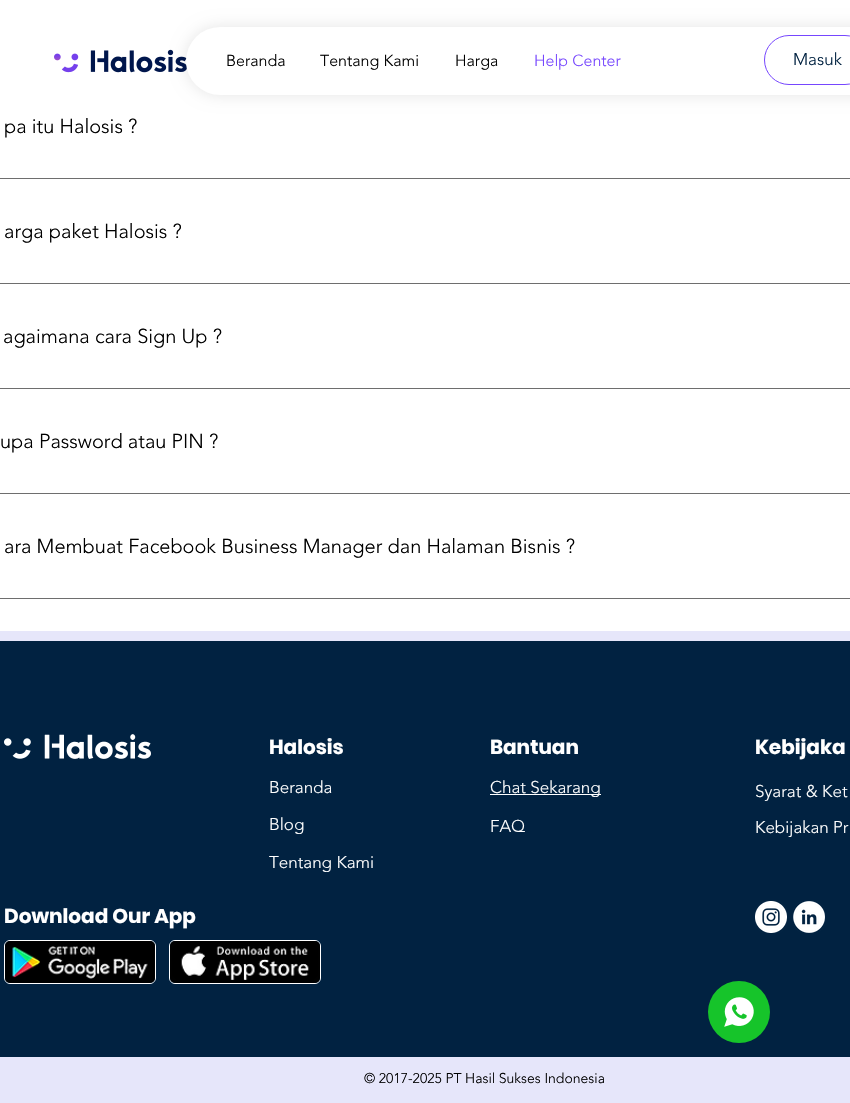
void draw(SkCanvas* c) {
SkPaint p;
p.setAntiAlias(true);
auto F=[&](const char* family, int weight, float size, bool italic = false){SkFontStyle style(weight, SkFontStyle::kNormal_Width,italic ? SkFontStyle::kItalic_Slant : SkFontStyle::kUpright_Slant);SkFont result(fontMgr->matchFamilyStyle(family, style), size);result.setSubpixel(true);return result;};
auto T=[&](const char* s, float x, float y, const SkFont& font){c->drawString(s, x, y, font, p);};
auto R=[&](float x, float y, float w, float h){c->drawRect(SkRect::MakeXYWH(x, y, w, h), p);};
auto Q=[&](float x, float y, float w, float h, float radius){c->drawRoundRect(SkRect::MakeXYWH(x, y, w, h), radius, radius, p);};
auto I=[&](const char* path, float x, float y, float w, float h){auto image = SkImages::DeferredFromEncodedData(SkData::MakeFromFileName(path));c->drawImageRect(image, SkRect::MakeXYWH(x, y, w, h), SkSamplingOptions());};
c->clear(0xffe6e6fa);
p.setColor(0xffffffff);
R(0,0,850,631);
I("1.png",54,49,133,24);
p.setColor(0x1a000000);
p.setMaskFilter(SkMaskFilter::MakeBlur(kNormal_SkBlurStyle, 8));
c->drawRoundRect(SkRect::MakeXYWH(186,27,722,68),34,34,p);
p.setMaskFilter(nullptr);
p.setColor(0xffffffff);
Q(186,27,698,68,34);
auto f1 = F("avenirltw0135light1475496",300,16);
p.setColor(0xff000000);
T("Beranda",226,66,f1);
T("Tentang Kami",320,66,f1);
T("Harga",455,66,f1);
p.setColor(0xff7646fe);
T("Help Center",534,66,f1);
p.setStroke(true);
p.setStrokeWidth(1);
c->drawRoundRect(SkRect::MakeXYWH(764.5,35.5,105,49),24.5,24.5,p);
auto f2 = F("avenirltw0135light1475496",300,17);
p.setStroke(false);
p.setColor(0xff012241);
T("Masuk",793,65,f2);
auto f3 = F("avenirltw0135light1475496",300,20);
p.setColor(0xff000000);
T("pa itu Halosis ?",4,133,f3);
p.setColor(0xff6e6e6e);
R(0,178,850,1);
p.setColor(0xff000000);
T("arga paket Halosis ?",4,238,f3);
p.setColor(0xff6e6e6e);
R(0,283,850,1);
p.setColor(0xff000000);
T("agaimana cara Sign Up ?",3,343,f3);
p.setColor(0xff6e6e6e);
R(0,388,850,1);
p.setColor(0xff000000);
T("upa Password atau PIN ?",0,448,f3);
p.setColor(0xff6e6e6e);
R(0,493,850,1);
p.setColor(0xff000000);
T("ara Membuat Facebook Business Manager dan Halaman Bisnis ?",4,553,f3);
p.setColor(0xff6e6e6e);
R(0,598,850,1);
p.setColor(0xff012241);
R(0,641,850,416);
auto f4 = F("Poppins",700,20);
p.setColor(0xffffffff);
T("Halosis",269,754,f4);
T("Beranda",269,793,f2);
T("Blog",269,830,f2);
T("Tentang Kami",269,868,f2);
T("Bantuan",490,754,f4);
R(490,794,111,1);
T("Chat Sekarang",490,793,f2);
T("FAQ",490,832,f2);
T("Kebijaka",755,754,f4);
T("Syarat & Ket",755,797,f2);
T("Kebijakan Pr",755,833,f2);
I("2.png",755,901,32,32);
I("3.png",793,901,32,32);
I("4.png",4,734,147,25);
T("Download Our App",4,923,f4);
p.setStroke(true);
c->drawRoundRect(SkRect::MakeXYWH(4.5,940.5,151,43),5.5,5.5,p);
I("5.png",5,941,150,42);
c->drawRoundRect(SkRect::MakeXYWH(169.5,940.5,151,43),5.5,5.5,p);
I("6.png",170,941,150,42);
auto f5 = F("avenirltw0135light1475496",300,14);
p.setStroke(false);
p.setColor(0xff000000);
T("© 2017-2025 PT Hasil Sukses Indonesia",364,1083,f5);
p.setColor(0xff16c42a);
c->drawCircle(739,1012,31,p);
I("7.png",724,997,30,30);
}
